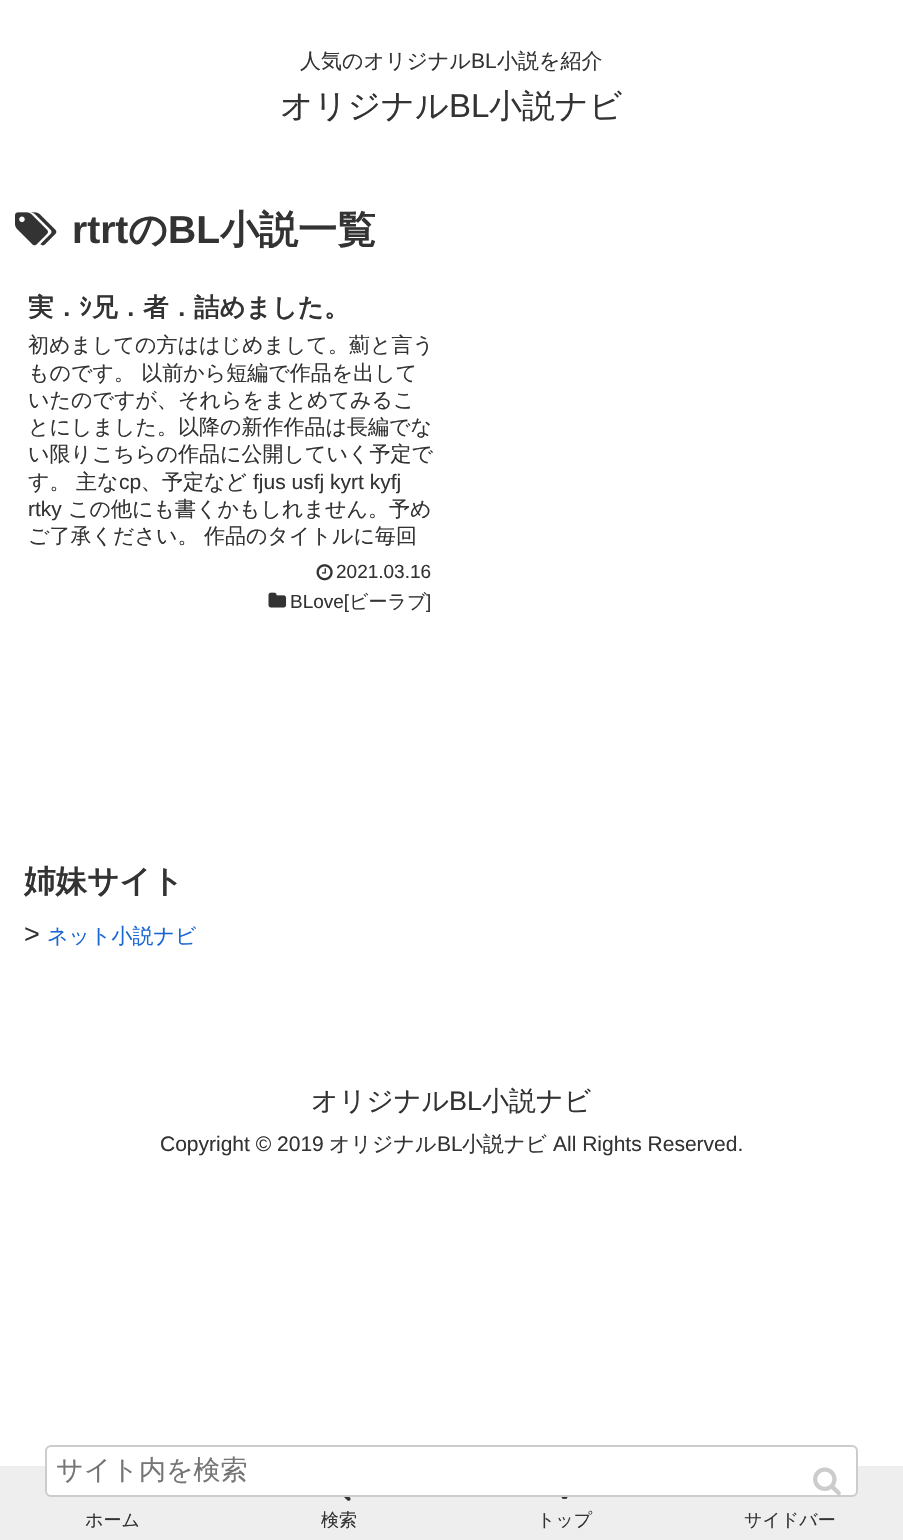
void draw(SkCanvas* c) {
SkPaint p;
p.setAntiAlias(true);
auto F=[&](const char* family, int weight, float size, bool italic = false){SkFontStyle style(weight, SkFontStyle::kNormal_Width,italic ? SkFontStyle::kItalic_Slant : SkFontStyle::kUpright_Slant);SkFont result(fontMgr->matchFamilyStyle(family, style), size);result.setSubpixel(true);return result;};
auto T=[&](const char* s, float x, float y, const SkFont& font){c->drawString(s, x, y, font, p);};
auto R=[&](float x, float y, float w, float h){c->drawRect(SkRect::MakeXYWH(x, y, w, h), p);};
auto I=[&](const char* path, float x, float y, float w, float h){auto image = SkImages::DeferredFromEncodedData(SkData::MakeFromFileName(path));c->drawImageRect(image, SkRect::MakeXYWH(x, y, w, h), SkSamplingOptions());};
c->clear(0xffffffff);
auto f1 = F("WenQuanYi Zen Hei",500,21);
p.setColor(0xff333333);
T("人気のオリジナル",300,68,f1);
auto f2 = F("Liberation Sans",400,21);
T("BL",471,68,f2);
T("小説を紹介",497,68,f1);
auto f3 = F("WenQuanYi Zen Hei",500,33);
T("オリジナル",280,117,f3);
auto f4 = F("Liberation Sans",400,33);
T("BL",449,117,f4);
T("小説ナビ",489,117,f3);
I("1.png",15,212,42,34);
auto f5 = F("Liberation Sans",700,39);
T("rtrt",72,243,f5);
auto f6 = F("WenQuanYi Zen Hei",700,39);
T("の",128,243,f6);
T("BL",168,243,f5);
T("小説一覧",220,243,f6);
auto f7 = F("WenQuanYi Zen Hei",700,25.5);
T("実．",28,316,f7);
auto f8 = F("IPAPGothic",700,25.5);
T("ｼ",79,316,f8);
T("兄．者．詰めました。",92,316,f7);
T("初めましての方ははじめまして。薊と言う",28,352,f1);
T("ものです。 以前から短編で作品を出して",28,380,f1);
T("いたのですが、それらをまとめてみるこ",28,407,f1);
T("とにしました。以降の新作作品は長編でな",28,434,f1);
T("い限りこちらの作品に公開していく予定で",28,461,f1);
T("す。",28,489,f1);
T("主な",76,489,f1);
T("cp",119,489,f2);
T("、予定など",141,489,f1);
T("fjus usfj kyrt kyfj",253,489,f2);
T("rtky",28,516,f2);
T("この他にも書くかもしれません。予め",68,516,f1);
T("ご了承ください。",28,543,f1);
T("作品のタイトルに毎回",204,543,f1);
I("2.png",316,564,17,17);
auto f9 = F("Liberation Sans",400,19);
T("2021.03.16",336,578,f9);
I("3.png",268,592,19,16);
T("BLove[",290,608,f9);
auto f10 = F("WenQuanYi Zen Hei",500,19);
T("ビーラブ",349,608,f10);
T("]",426,608,f9);
auto f11 = F("WenQuanYi Zen Hei",700,31.5);
T("姉妹サイト",24,892,f11);
auto f12 = F("Liberation Sans",400,27);
T(">",24,943,f12);
p.setColor(0xff1967d2);
T("ネット小説ナビ",47,943,f1);
auto f13 = F("WenQuanYi Zen Hei",500,27);
p.setColor(0xff333333);
T("オリジナル",311,1110,f13);
T("BL",449,1110,f12);
T("小説ナビ",482,1110,f13);
T("Copyright © 2019",160,1151,f2);
T("オリジナル",329,1151,f1);
T("BL",437,1151,f2);
T("小説ナビ",462,1151,f1);
T("All Rights Reserved.",553,1151,f2);
p.setColor(0xffeeeeee);
R(0,1466,903,74);
p.setColor(0xffffffff);
c->drawRoundRect(SkRect::MakeXYWH(46,1446,811,50),5,5,p);
p.setStroke(true);
p.setStrokeWidth(2);
p.setColor(0xffcccccc);
c->drawRoundRect(SkRect::MakeXYWH(46,1446,811,50),5,5,p);
p.setStroke(false);
p.setColor(0xff757575);
T("サイト内を検索",56,1479,f13);
I("4.png",813,1467,28,28);
I("5.png",344,1497,7,4);
auto f14 = F("WenQuanYi Zen Hei",500,18);
p.setColor(0xff333333);
T("検索",321,1526,f14);
I("6.png",561,1497,7,2);
T("トップ",537,1526,f14);
T("サイドバー",744,1526,f14);
T("ホーム",85,1526,f14);
}
